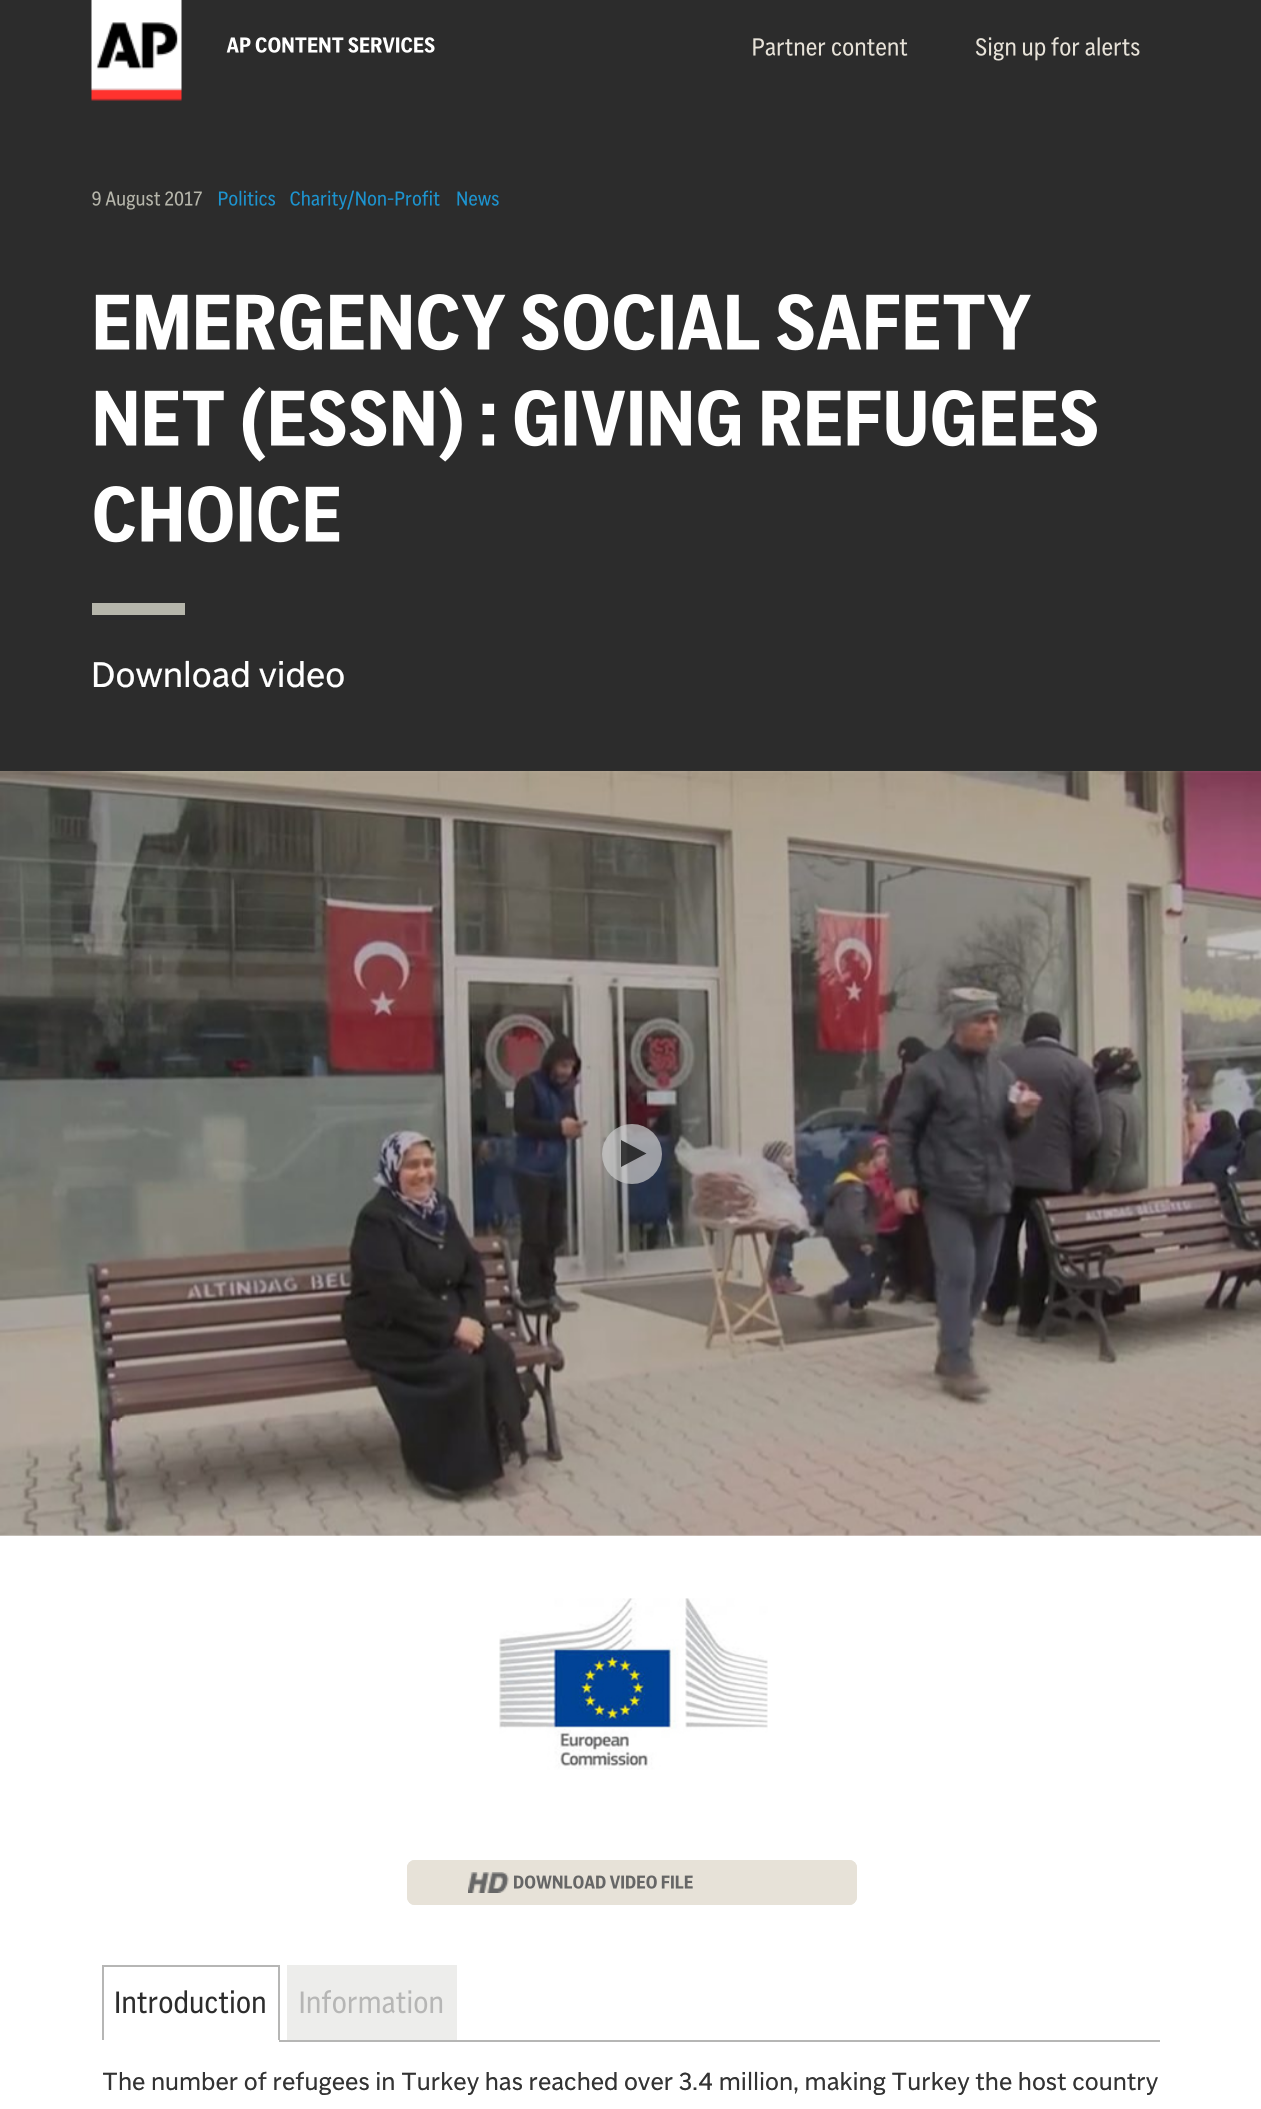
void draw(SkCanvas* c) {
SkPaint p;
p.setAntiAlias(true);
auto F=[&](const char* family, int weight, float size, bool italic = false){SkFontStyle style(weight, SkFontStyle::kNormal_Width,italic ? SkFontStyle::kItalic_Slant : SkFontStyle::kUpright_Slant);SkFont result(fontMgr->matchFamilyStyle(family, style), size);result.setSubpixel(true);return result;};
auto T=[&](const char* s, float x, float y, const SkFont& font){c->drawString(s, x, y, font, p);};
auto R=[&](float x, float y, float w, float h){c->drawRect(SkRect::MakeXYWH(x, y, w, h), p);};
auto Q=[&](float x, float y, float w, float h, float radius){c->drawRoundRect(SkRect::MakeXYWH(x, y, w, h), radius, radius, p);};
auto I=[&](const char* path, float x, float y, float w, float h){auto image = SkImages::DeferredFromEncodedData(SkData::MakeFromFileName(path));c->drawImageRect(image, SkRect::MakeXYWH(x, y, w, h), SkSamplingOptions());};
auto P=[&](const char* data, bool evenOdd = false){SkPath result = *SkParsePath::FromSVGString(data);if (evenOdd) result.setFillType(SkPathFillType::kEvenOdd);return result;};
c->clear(0xffffffff);
p.setColor(0xff2c2c2c);
R(0,0,1261,771);
I("1.png",91,0,91,101);
I("2.png",226,37,209,16);
I("3.png",753,38,73,18);
I("4.png",832,39,76,17);
I("5.png",975,37,41,24);
I("6.png",1022,37,118,24);
I("7.png",92,191,110,19);
I("8.png",218,190,58,16);
I("9.png",290,190,150,20);
I("10.png",457,191,42,15);
I("11.png",95,294,936,57);
I("12.png",95,387,1002,75);
I("13.png",94,486,246,57);
p.setColor(0xffb6b6ab);
R(92,603,93,12);
auto f1 = F("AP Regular",400,34.5);
p.setColor(0xffffffff);
T("Download video",91,687,f1);
I("14.png",0,771,1261,765);
p.setColor(0xb3cccccc);
c->drawCircle(632,1154,30,p);
p.setColor(0xb3000000);
c->drawPath(P("M621 1167v-27l25.5 13.5z"),p);
I("15.png",499,1598,269,172);
p.setColor(0xffe7e2d8);
Q(407,1860,450,45,8);
I("16.png",468,1872,41,21);
p.setStroke(true);
p.setStrokeWidth(2);
c->drawRoundRect(SkRect::MakeXYWH(408,1861,448,43),7,7,p);
I("17.png",514,1875,179,14);
p.setStroke(false);
p.setColor(0xffb6b6b5);
R(279,2040,881,2);
R(102,1965,177,2);
R(278,1965,2,75);
R(102,1965,2,75);
I("18.png",116,1990,149,24);
p.setColor(0xffededeb);
R(287,1965,170,75);
I("19.png",300,1990,143,24);
auto f2 = F("AP Regular",400,24);
p.setColor(0xff333333);
T("The number of refugees in Turkey has reached over 3.4 million, making Turkey the host country",102,2090,f2);
}
